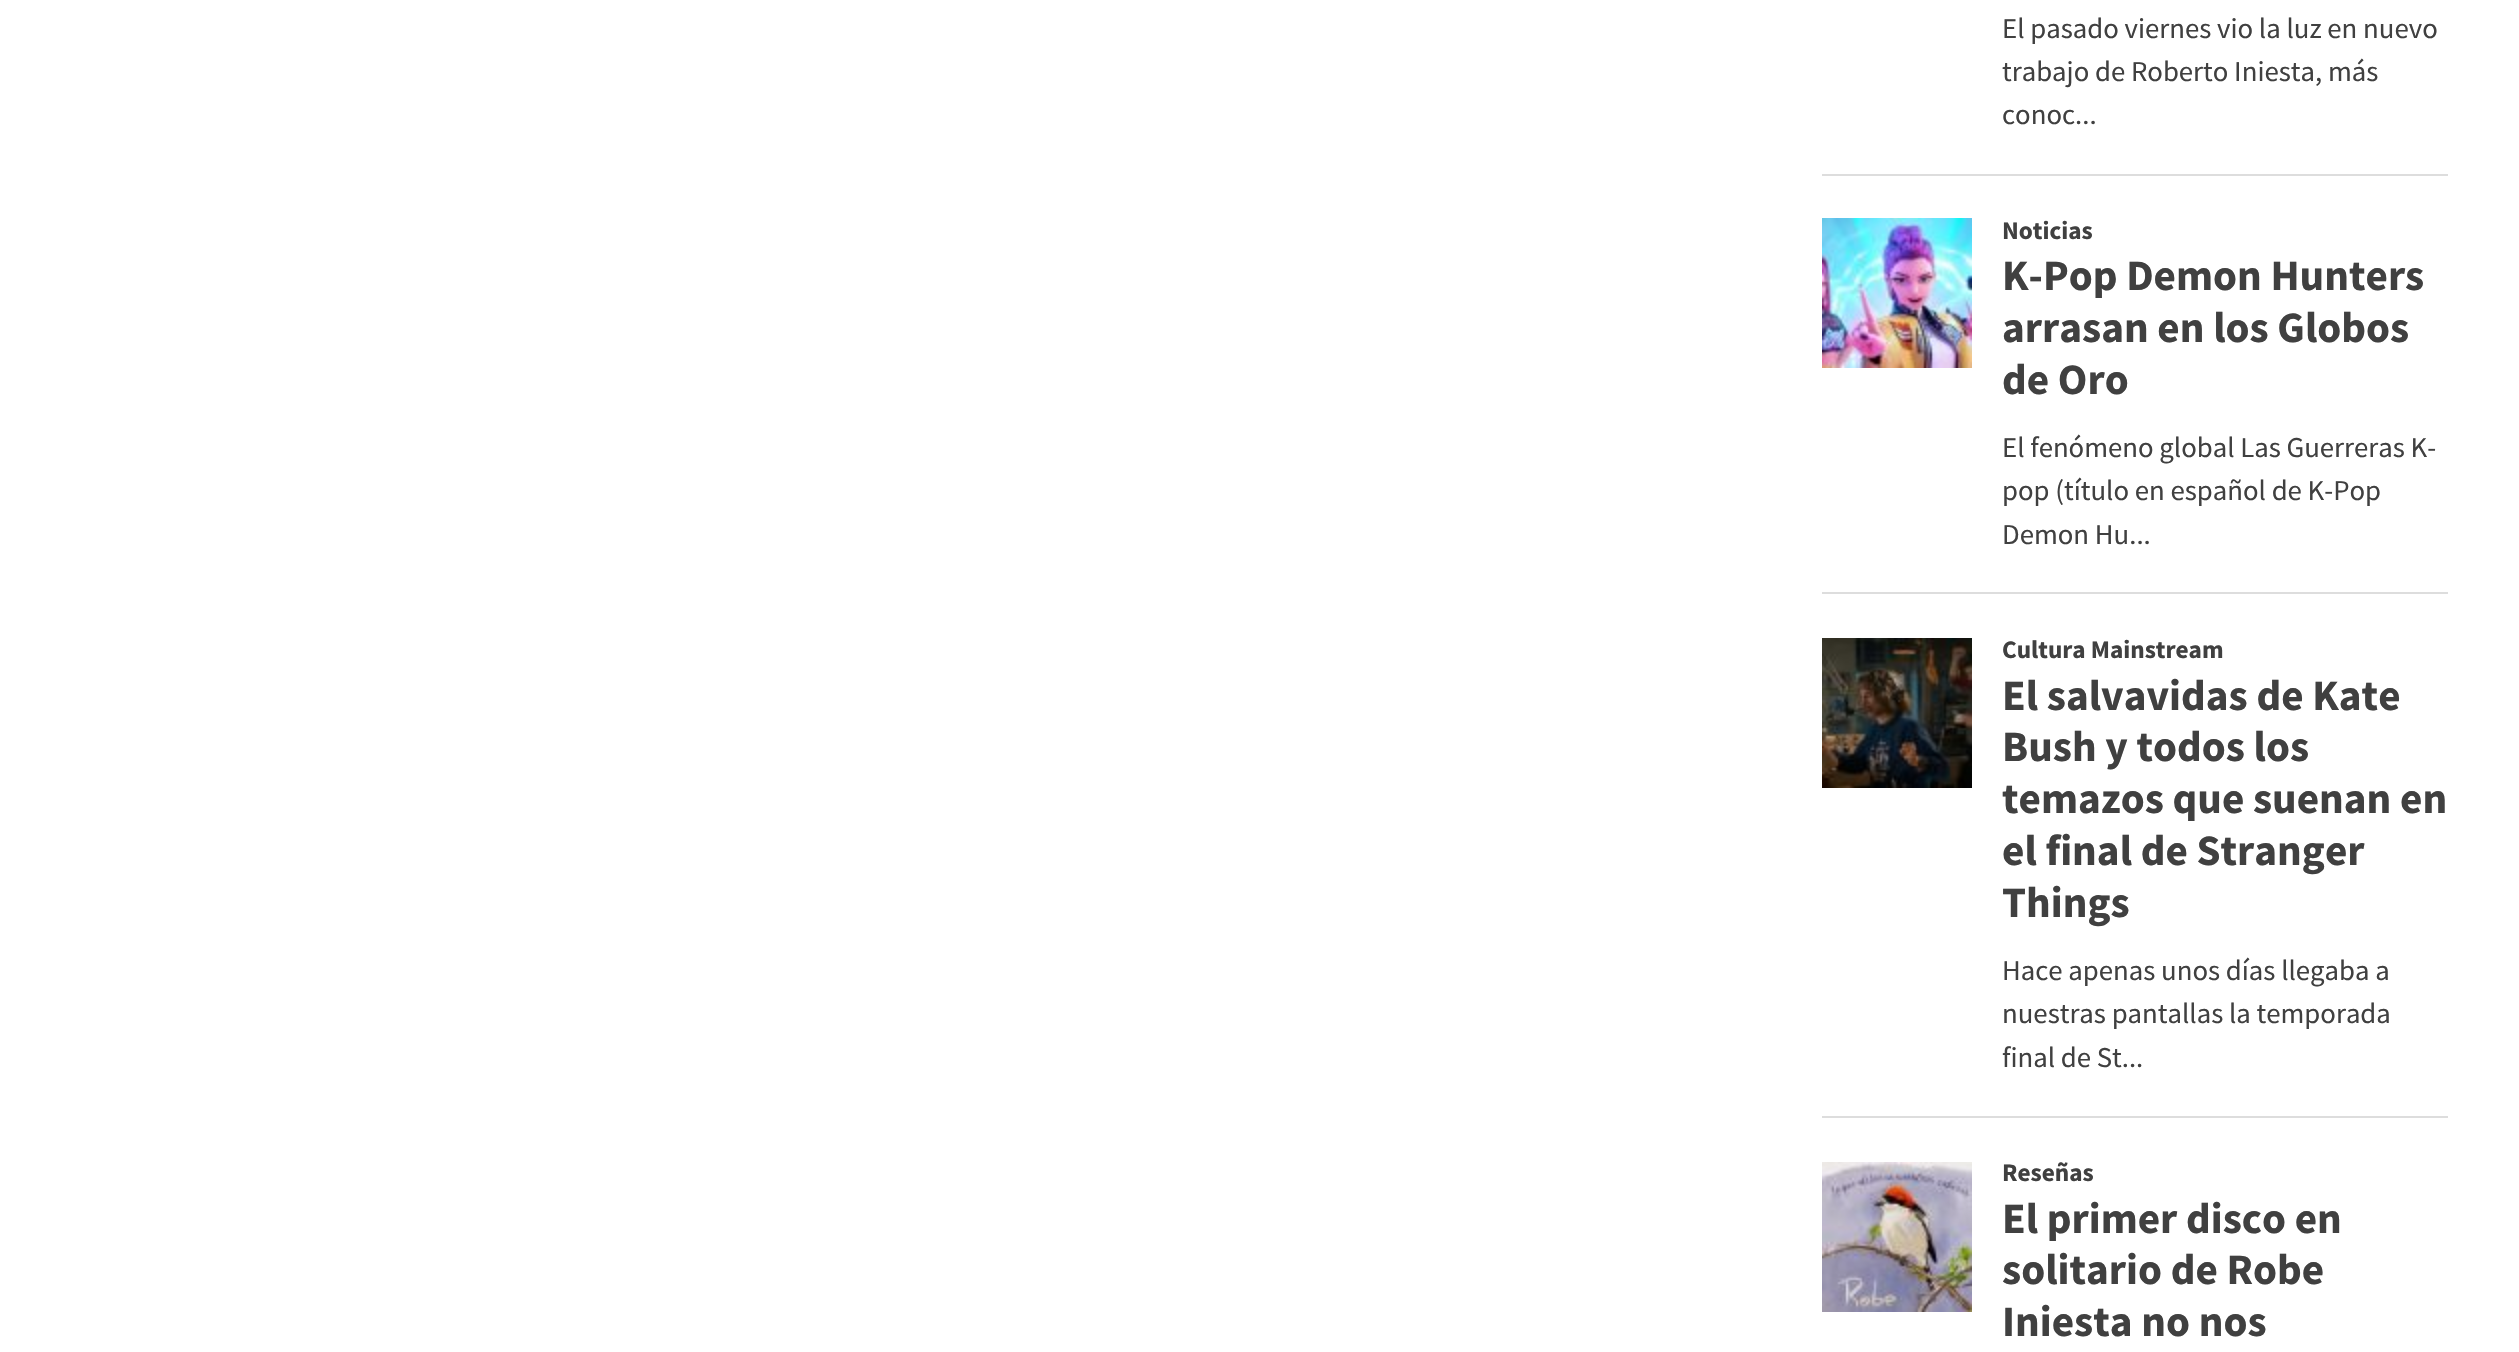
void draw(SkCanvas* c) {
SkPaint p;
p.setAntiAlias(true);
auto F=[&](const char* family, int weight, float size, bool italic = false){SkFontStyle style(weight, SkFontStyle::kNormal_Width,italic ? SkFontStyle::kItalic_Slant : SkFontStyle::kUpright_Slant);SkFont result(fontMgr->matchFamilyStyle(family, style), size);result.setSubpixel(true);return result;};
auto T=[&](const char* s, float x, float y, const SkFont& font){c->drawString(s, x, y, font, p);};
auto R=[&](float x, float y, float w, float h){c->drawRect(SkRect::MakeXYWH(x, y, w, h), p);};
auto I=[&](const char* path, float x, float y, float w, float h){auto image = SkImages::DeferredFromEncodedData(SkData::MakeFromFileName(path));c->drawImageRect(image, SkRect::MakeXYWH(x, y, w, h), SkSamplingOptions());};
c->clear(0xffffffff);
p.setColor(0xffdddddd);
R(1822,174,626,2);
auto f1 = F("Source Sans Pro",400,28.75);
p.setColor(0xff404040);
T("El pasado viernes vio la luz en nuevo",2002,38,f1);
T("trabajo de Roberto Iniesta, más",2002,81,f1);
T("conoc...",2002,124,f1);
p.setColor(0xffdddddd);
R(1822,592,626,2);
I("1.png",1822,218,150,150);
auto f2 = F("Source Sans Pro",700,25.25);
p.setColor(0xff404040);
T("Noticias",2002,239,f2);
auto f3 = F("Source Sans Pro",700,43.25);
T("K-Pop Demon Hunters",2002,290,f3);
T("arrasan en los Globos",2002,342,f3);
T("de Oro",2002,394,f3);
T("El fenómeno global Las Guerreras K-",2002,457,f1);
T("pop (título en español de K-Pop",2002,500,f1);
T("Demon Hu...",2002,544,f1);
p.setColor(0xffdddddd);
R(1822,1116,626,2);
I("2.png",1822,638,150,150);
p.setColor(0xff404040);
T("Cultura Mainstream",2002,658,f2);
T("El salvavidas de Kate",2002,710,f3);
T("Bush y todos los",2002,761,f3);
T("temazos que suenan en",2002,813,f3);
T("el final de Stranger",2002,865,f3);
T("Things",2002,917,f3);
T("Hace apenas unos días llegaba a",2002,980,f1);
T("nuestras pantallas la temporada",2002,1023,f1);
T("final de St...",2002,1067,f1);
I("3.png",1822,1162,150,150);
T("Reseñas",2002,1181,f2);
T("El primer disco en",2002,1233,f3);
T("solitario de Robe",2002,1284,f3);
T("Iniesta no nos",2002,1336,f3);
}
